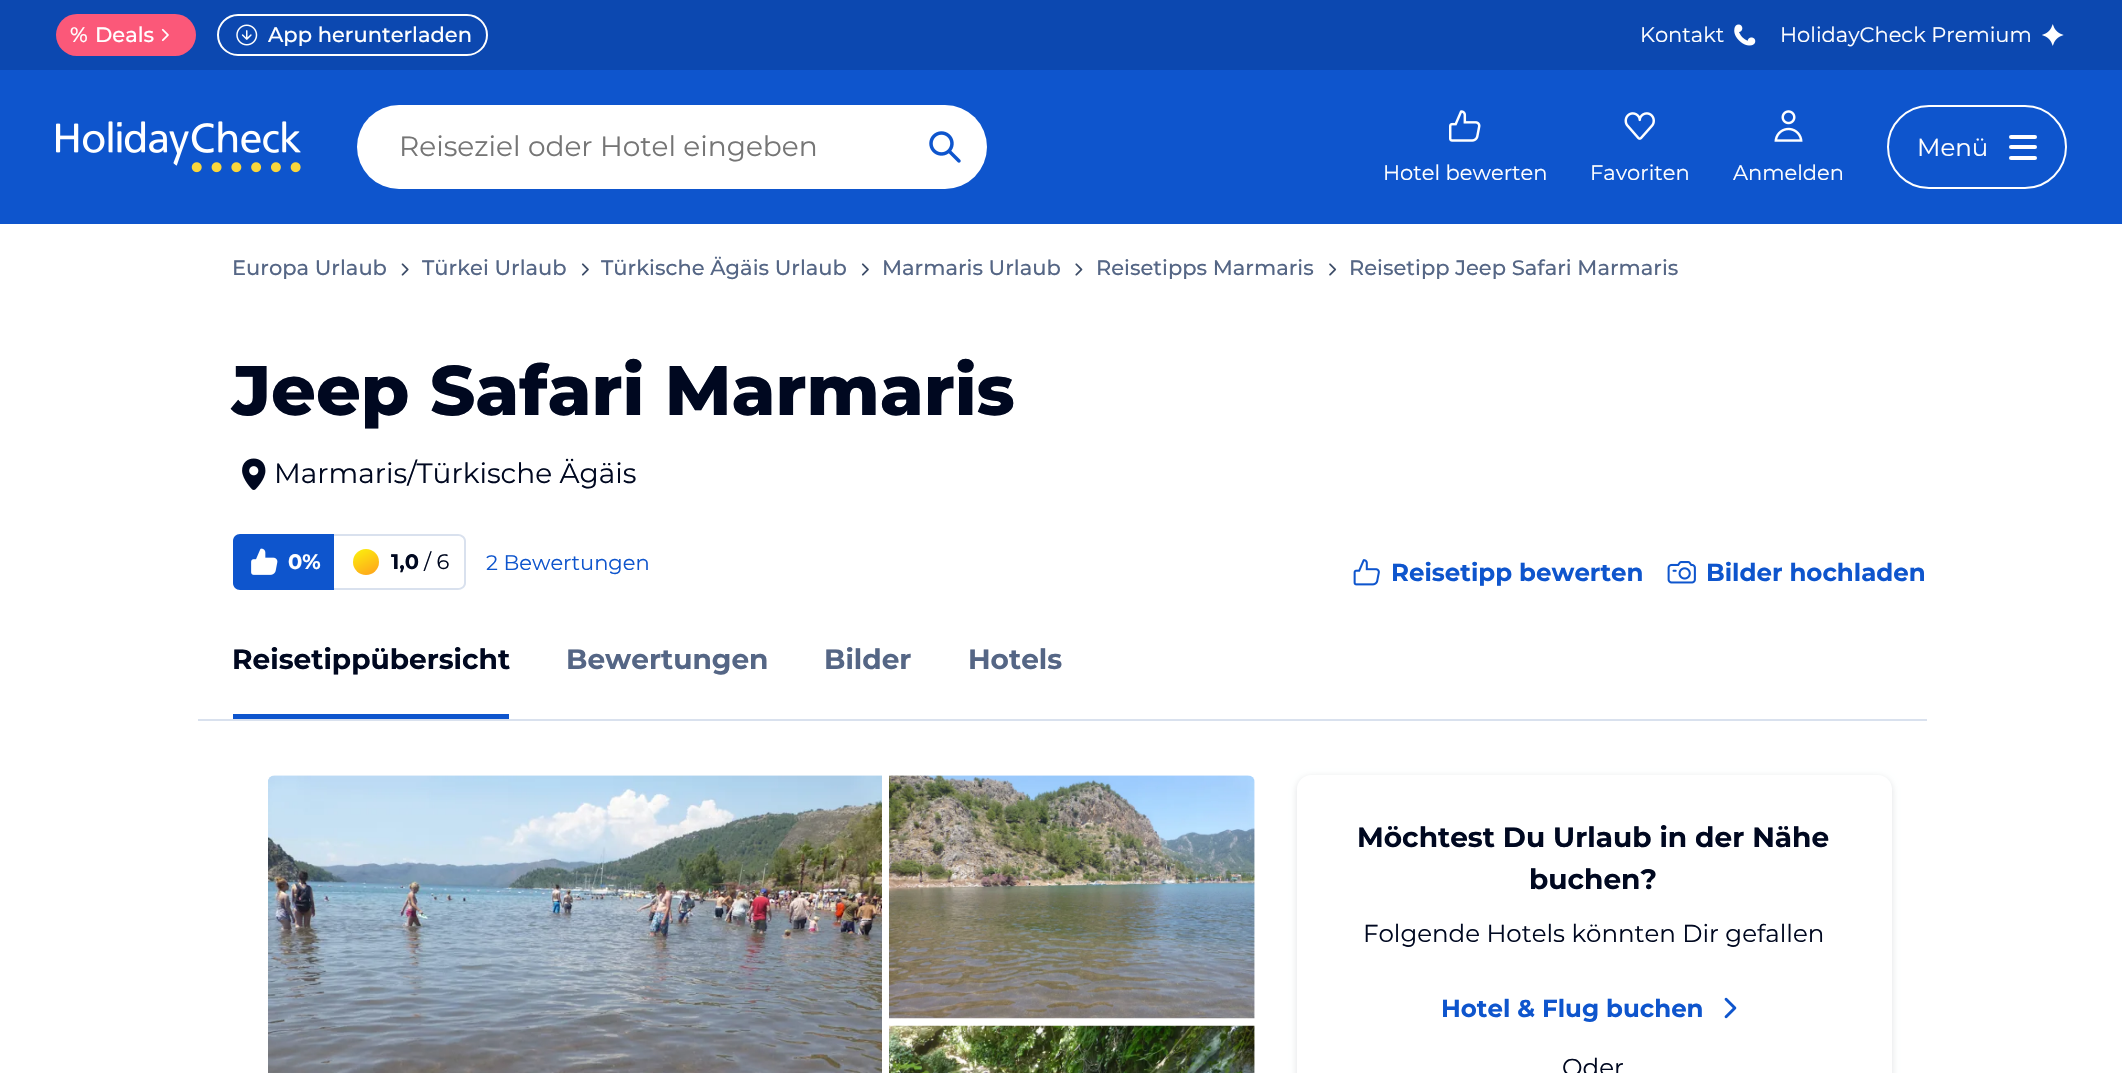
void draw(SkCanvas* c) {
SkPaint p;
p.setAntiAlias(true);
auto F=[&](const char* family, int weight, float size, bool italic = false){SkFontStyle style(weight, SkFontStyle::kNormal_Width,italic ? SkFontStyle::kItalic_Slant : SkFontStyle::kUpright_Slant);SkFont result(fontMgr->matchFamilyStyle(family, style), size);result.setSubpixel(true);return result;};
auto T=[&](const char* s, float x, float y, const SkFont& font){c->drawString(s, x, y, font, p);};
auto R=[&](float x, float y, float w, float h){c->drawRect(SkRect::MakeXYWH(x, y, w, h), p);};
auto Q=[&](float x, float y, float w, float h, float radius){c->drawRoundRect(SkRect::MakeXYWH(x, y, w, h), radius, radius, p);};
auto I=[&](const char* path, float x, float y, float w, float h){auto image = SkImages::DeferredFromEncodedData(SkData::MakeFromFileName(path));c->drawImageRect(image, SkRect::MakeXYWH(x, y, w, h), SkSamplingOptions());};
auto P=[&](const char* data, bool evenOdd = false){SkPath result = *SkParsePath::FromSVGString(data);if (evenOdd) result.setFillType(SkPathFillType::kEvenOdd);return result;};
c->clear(0xffffffff);
p.setColor(0xff0c48b0);
R(0,0,2122,70);
p.setColor(0xfffb5879);
Q(56,14,140,42,21);
auto f1 = F("Montserrat",500,21);
p.setColor(0xffffffff);
T("%",70,42,f1);
T("Deals",95,42,f1);
I("1.png",161,28,8,14);
p.setStroke(true);
p.setStrokeWidth(2);
c->drawRoundRect(SkRect::MakeXYWH(218,15,269,40),20,20,p);
I("2.png",236,24,22,22);
p.setStroke(false);
T("App herunterladen",268,42,f1);
auto f2 = F("Montserrat",400,21);
T("Kontakt",1640,42,f2);
I("3.png",1734,24,22,22);
T("HolidayCheck Premium",1780,42,f2);
I("4.png",2042,24,22,22);
p.setColor(0xff0e55cd);
R(0,70,2122,154);
I("5.png",56,121,245,52);
p.setColor(0xffffffff);
Q(357,105,630,84,42);
auto f3 = F("Montserrat",400,28);
p.setColor(0xff757575);
T("Reiseziel oder Hotel eingeben",399,156,f3);
I("6.png",929,131,32,32);
p.setStroke(true);
p.setColor(0xffffffff);
c->drawRoundRect(SkRect::MakeXYWH(1888,106,178,82),41,41,p);
auto f4 = F("Montserrat",400,24.5);
p.setStroke(false);
T("Menü",1917,156,f4);
Q(2009,135,28,4,2);
Q(2009,156,28,4,2);
Q(2009,145,28,4,2);
I("7.png",1449,110,32,32);
T("Hotel bewerten",1383,180,f2);
I("8.png",1624,112,31,28);
T("Favoriten",1590,180,f2);
I("9.png",1774,110,29,32);
T("Anmelden",1733,180,f2);
p.setColor(0xff556685);
T("Europa Urlaub",232,275,f1);
I("10.png",401,263,8,13);
T("Türkei Urlaub",422,275,f1);
I("11.png",581,263,8,13);
T("Türkische Ägäis Urlaub",601,275,f1);
I("11.png",861,263,8,13);
T("Marmaris Urlaub",882,275,f1);
I("12.png",1075,263,8,13);
T("Reisetipps Marmaris",1096,275,f1);
I("13.png",1329,263,8,13);
T("Reisetipp Jeep Safari Marmaris",1349,275,f1);
auto f5 = F("Montserrat",800,70);
p.setColor(0xff000820);
T("Jeep Safari Marmaris",232,415,f5);
I("14.png",242,458,24,32);
T("Marmaris/Türkische Ägäis",274,483,f3);
p.setColor(0xff0e55cd);
c->drawPath(P("M240 534h94v56h-94c-4 0-7-3-7-7v-42c0-4 3-7 7-7z"),p);
I("15.png",251,548,27,27);
auto f6 = F("Montserrat",700,21);
p.setColor(0xffffffff);
T("0%",288,569,f6);
p.setColor(0xffd9e1ee);
c->drawPath(P("M334 534h124c4 0 8 3 8 7v42c0 4-4 7-8 7h-124zm0 2h124c3 0 6 2 6 5v42c0 3-3 5-6 5h-124z",true),p);
{
const SkColor colors[] = {0xfffce70f,0xfffeac1b};
const float stops[] = {0,1};
const SkPoint ends[] = {{360,551}, {371,573}};
p.setShader(SkGradientShader::MakeLinear(ends, colors, stops, 2, SkTileMode::kClamp));
p.setAlpha(255);
}
c->drawCircle(366,562,13,p);
p.setShader(nullptr);
p.setColor(0xff000820);
T("1,0",391,569,f6);
T("/ 6",424,569,f2);
p.setColor(0xff0e55cd);
T("2 Bewertungen",486,570,f2);
I("16.png",1353,559,27,27);
auto f7 = F("Montserrat",700,24.5);
T("Reisetipp bewerten",1391,581,f7);
I("17.png",1667,561,29,23);
T("Bilder hochladen",1706,581,f7);
p.setColor(0xffd9e1ee);
R(198,719,1729,2);
p.setColor(0xff0e55cd);
R(233,714,276,5);
auto f8 = F("Montserrat",700,28);
p.setColor(0xff000820);
T("Reisetippübersicht",232,669,f8);
p.setColor(0xff556685);
T("Bewertungen",566,669,f8);
T("Bilder",824,669,f8);
T("Hotels",968,669,f8);
I("18.png",268,775,614,298);
I("19.png",889,775,366,244);
I("20.png",889,1025,366,48);
c->save();
c->clipPath(P("M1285 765h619v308h-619zm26 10h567c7.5 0 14 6.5 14 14v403c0 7.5-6.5 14-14 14h-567c-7.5 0-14-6.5-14-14v-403c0-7.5 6.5-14 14-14z",true),true);
p.setColor(0x1f000820);
p.setMaskFilter(SkMaskFilter::MakeBlur(kNormal_SkBlurStyle, 3.5));
c->drawRoundRect(SkRect::MakeXYWH(1297,777,595,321),14,14,p);
p.setMaskFilter(nullptr);
c->restore();
p.setColor(0xff000820);
T("Möchtest Du Urlaub in der Nähe",1357,847,f8);
T("buchen?",1529,889,f8);
T("Folgende Hotels könnten Dir gefallen",1363,942,f4);
p.setColor(0xff0e55cd);
T("Hotel & Flug buchen",1441,1017,f7);
I("21.png",1724,997,13,22);
p.setColor(0xff000820);
T("Oder",1562,1076,f4);
}
